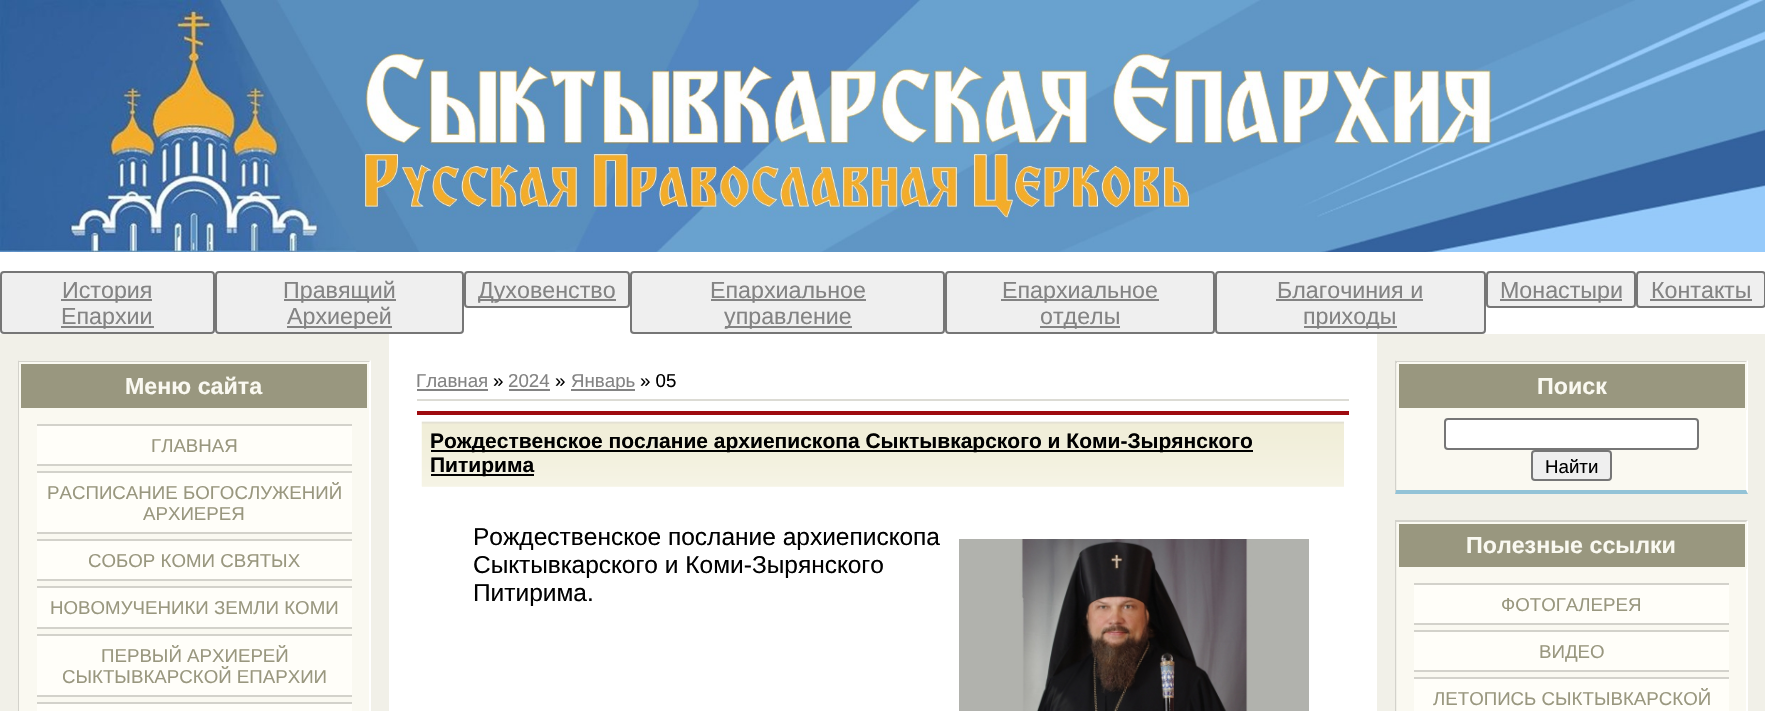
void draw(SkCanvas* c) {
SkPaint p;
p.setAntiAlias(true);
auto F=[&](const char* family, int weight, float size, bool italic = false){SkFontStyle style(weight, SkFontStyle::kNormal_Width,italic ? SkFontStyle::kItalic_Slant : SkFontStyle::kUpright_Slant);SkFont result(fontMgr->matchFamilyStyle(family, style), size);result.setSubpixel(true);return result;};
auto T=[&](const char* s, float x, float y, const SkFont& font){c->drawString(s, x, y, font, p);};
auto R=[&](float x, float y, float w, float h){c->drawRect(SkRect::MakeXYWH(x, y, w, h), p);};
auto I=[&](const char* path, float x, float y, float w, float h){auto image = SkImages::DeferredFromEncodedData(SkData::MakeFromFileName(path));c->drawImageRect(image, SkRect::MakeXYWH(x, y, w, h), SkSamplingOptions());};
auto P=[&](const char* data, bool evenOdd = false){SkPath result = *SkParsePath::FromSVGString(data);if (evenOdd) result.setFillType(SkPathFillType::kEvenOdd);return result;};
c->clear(0xffffffff);
I("1.png",0,0,1765,252);
p.setColor(0xffefefef);
c->drawRoundRect(SkRect::MakeXYWH(1,272,213,61),3,3,p);
p.setStroke(true);
p.setStrokeWidth(2);
p.setColor(0xff767676);
c->drawRoundRect(SkRect::MakeXYWH(1,272,213,61),3,3,p);
p.setStroke(false);
p.setColor(0xff838383);
R(61,299,91,2);
auto f1 = F("Liberation Sans",400,23.25);
T("История",62,298,f1);
R(61,326,93,2);
T("Епархии",61,324,f1);
p.setColor(0xffefefef);
c->drawRoundRect(SkRect::MakeXYWH(216,272,247,61),3,3,p);
p.setStroke(true);
p.setColor(0xff767676);
c->drawRoundRect(SkRect::MakeXYWH(216,272,247,61),3,3,p);
p.setStroke(false);
p.setColor(0xff838383);
R(284,299,112,2);
T("Правящий",283,298,f1);
R(287,326,105,2);
T("Архиерей",287,324,f1);
p.setColor(0xffefefef);
c->drawRoundRect(SkRect::MakeXYWH(465,272,164,35),3,3,p);
p.setStroke(true);
p.setColor(0xff767676);
c->drawRoundRect(SkRect::MakeXYWH(465,272,164,35),3,3,p);
p.setStroke(false);
p.setColor(0xff838383);
R(478,299,138,2);
T("Духовенство",478,298,f1);
p.setColor(0xffefefef);
c->drawRoundRect(SkRect::MakeXYWH(631,272,313,61),3,3,p);
p.setStroke(true);
p.setColor(0xff767676);
c->drawRoundRect(SkRect::MakeXYWH(631,272,313,61),3,3,p);
p.setStroke(false);
p.setColor(0xff838383);
R(711,299,155,2);
T("Епархиальное",710,298,f1);
R(725,326,127,2);
T("управление",724,324,f1);
p.setColor(0xffefefef);
c->drawRoundRect(SkRect::MakeXYWH(946,272,268,61),3,3,p);
p.setStroke(true);
p.setColor(0xff767676);
c->drawRoundRect(SkRect::MakeXYWH(946,272,268,61),3,3,p);
p.setStroke(false);
p.setColor(0xff838383);
R(1001,299,158,2);
T("Епархиальное",1002,298,f1);
R(1040,326,80,2);
T("отделы",1040,324,f1);
p.setColor(0xffefefef);
c->drawRoundRect(SkRect::MakeXYWH(1216,272,269,61),3,3,p);
p.setStroke(true);
p.setColor(0xff767676);
c->drawRoundRect(SkRect::MakeXYWH(1216,272,269,61),3,3,p);
p.setStroke(false);
p.setColor(0xff838383);
T("Благочиния и",1277,298,f1);
R(1276,299,147,2);
R(1304,326,93,2);
T("приходы",1303,324,f1);
p.setColor(0xffefefef);
c->drawRoundRect(SkRect::MakeXYWH(1487,272,148,35),3,3,p);
p.setStroke(true);
p.setColor(0xff767676);
c->drawRoundRect(SkRect::MakeXYWH(1487,272,148,35),3,3,p);
p.setStroke(false);
p.setColor(0xff838383);
R(1500,299,122,2);
T("Монастыри",1500,298,f1);
p.setColor(0xffefefef);
c->drawRoundRect(SkRect::MakeXYWH(1637,272,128,35),3,3,p);
p.setStroke(true);
p.setColor(0xff767676);
c->drawRoundRect(SkRect::MakeXYWH(1637,272,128,35),3,3,p);
p.setStroke(false);
p.setColor(0xff838383);
T("Контакты",1651,298,f1);
R(1650,299,102,2);
p.setColor(0xfff1f0e8);
R(0,334,389,377);
p.setColor(0xfffaf9f1);
R(19,410,350,301);
p.setColor(0xffd3d2cb);
R(18,361,353,1);
p.setColor(0xffffffff);
c->drawPath(P("M371 360v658l-2-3v-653z"),p);
p.setColor(0xffd3d2cb);
c->drawPath(P("M18 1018v-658l1 2v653z"),p);
p.setColor(0xff99977f);
c->drawRect(SkRect::MakeXYWH(20,363,348,46),p);
p.setStroke(true);
p.setColor(0xfffaf9f1);
c->drawRect(SkRect::MakeXYWH(20,363,348,46),p);
auto f2 = F("Liberation Sans",700,23.25);
p.setStroke(false);
T("Меню сайта",125,394,f2);
p.setColor(0xfffffef9);
R(37,426,315,38);
p.setColor(0xffd3d2cb);
R(37,424,315,2);
R(37,464,315,2);
auto f3 = F("Liberation Sans",400,18.7);
p.setColor(0xff99977f);
T("ГЛАВНАЯ",151,452,f3);
p.setColor(0xfffffef9);
R(37,473,315,59);
p.setColor(0xffd3d2cb);
R(37,471,315,2);
R(37,532,315,2);
p.setColor(0xff99977f);
T("РАСПИСАНИЕ БОГОСЛУЖЕНИЙ",47,499,f3);
T("АРХИЕРЕЯ",143,520,f3);
p.setColor(0xfffffef9);
R(37,541,315,38);
p.setColor(0xffd3d2cb);
R(37,539,315,2);
R(37,579,315,2);
p.setColor(0xff99977f);
T("СОБОР КОМИ СВЯТЫХ",88,567,f3);
p.setColor(0xfffffef9);
R(37,588,315,39);
p.setColor(0xffd3d2cb);
R(37,586,315,2);
R(37,627,315,2);
p.setColor(0xff99977f);
T("НОВОМУЧЕНИКИ ЗЕМЛИ КОМИ",50,614,f3);
p.setColor(0xfffffef9);
R(37,636,315,59);
p.setColor(0xffd3d2cb);
R(37,634,315,2);
R(37,695,315,2);
p.setColor(0xff99977f);
T("ПЕРВЫЙ АРХИЕРЕЙ",101,662,f3);
T("СЫКТЫВКАРСКОЙ ЕПАРХИИ",62,683,f3);
p.setColor(0xfffffef9);
R(37,704,315,7);
p.setColor(0xffd3d2cb);
R(37,702,315,2);
p.setColor(0xff838383);
T("Главная",416,387,f3);
R(417,389,71,2);
p.setColor(0xff000000);
T("»",493,387,f3);
p.setColor(0xff838383);
T("2024",508,387,f3);
R(509,389,41,2);
p.setColor(0xff000000);
T("»",555,387,f3);
p.setColor(0xff838383);
R(571,389,64,2);
T("Январь",571,387,f3);
p.setColor(0xff000000);
T("» 05",640,387,f3);
p.setColor(0xffdcdbd4);
R(417,399,932,2);
p.setColor(0xff9e0b0f);
R(417,411,932,4);
p.setColor(0xfffaf9f1);
R(422,486,922,1);
I("2.png",421,420,923,67);
p.setColor(0xff000000);
R(431,450,822,2);
auto f4 = F("Liberation Sans",700,21);
T("Рождественское послание архиепископа Сыктывкарского и Коми-Зырянского",430,448,f4);
R(431,474,103,2);
T("Питирима",430,472,f4);
auto f5 = F("Liberation Sans",400,24.5);
T("Рождественское послание архиепископа",473,545,f5);
I("3.png",959,539,350,172);
T("Сыктывкарского и Коми-Зырянского",473,573,f5);
T("Питирима.",473,601,f5);
p.setColor(0xfff1f0e8);
R(1377,334,388,377);
p.setColor(0xfffaf9f1);
R(1397,410,349,80);
p.setColor(0xffd3d2cb);
R(1395,361,353,2);
p.setColor(0xffffffff);
c->drawPath(P("M1748 360v134l-2-4v-128z"),p);
p.setColor(0xff93c3d7);
c->drawPath(P("M1748 494h-353l1-4h350z"),p);
p.setColor(0xffd3d2cb);
c->drawPath(P("M1395 494v-134l1 2v128z"),p);
p.setColor(0xff99977f);
c->drawRect(SkRect::MakeXYWH(1398,363,348,46),p);
p.setStroke(true);
p.setColor(0xfffaf9f1);
c->drawRect(SkRect::MakeXYWH(1398,363,348,46),p);
p.setStroke(false);
T("Поиск",1537,394,f2);
p.setColor(0xffffffff);
c->drawRoundRect(SkRect::MakeXYWH(1445,419,253,30),3,3,p);
p.setStroke(true);
p.setColor(0xff767676);
c->drawRoundRect(SkRect::MakeXYWH(1445,419,253,30),3,3,p);
p.setStroke(false);
p.setColor(0xffefefef);
c->drawRoundRect(SkRect::MakeXYWH(1532,451,79,29),3,3,p);
p.setStroke(true);
p.setColor(0xff767676);
c->drawRoundRect(SkRect::MakeXYWH(1532,451,79,29),3,3,p);
p.setStroke(false);
p.setColor(0xff000000);
T("Найти",1545,473,f3);
p.setColor(0xfffaf9f1);
R(1397,569,349,142);
p.setColor(0xffd3d2cb);
R(1395,520,353,2);
p.setColor(0xffffffff);
c->drawPath(P("M1748 520v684l-2-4v-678z"),p);
p.setColor(0xffd3d2cb);
c->drawPath(P("M1395 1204v-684l1 2v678z"),p);
p.setColor(0xff99977f);
c->drawRect(SkRect::MakeXYWH(1398,523,348,45),p);
p.setStroke(true);
p.setColor(0xfffaf9f1);
c->drawRect(SkRect::MakeXYWH(1398,523,348,45),p);
p.setStroke(false);
T("Полезные ссылки",1466,553,f2);
p.setColor(0xfffffef9);
R(1414,585,315,38);
p.setColor(0xffd3d2cb);
R(1414,583,315,2);
R(1414,623,315,2);
p.setColor(0xff99977f);
T("ФОТОГАЛЕРЕЯ",1501,611,f3);
p.setColor(0xfffffef9);
R(1414,632,315,38);
p.setColor(0xffd3d2cb);
R(1414,630,315,2);
R(1414,670,315,2);
p.setColor(0xff99977f);
T("ВИДЕО",1539,658,f3);
p.setColor(0xfffffef9);
R(1414,679,315,32);
p.setColor(0xffd3d2cb);
R(1414,677,315,2);
p.setColor(0xff99977f);
T("ЛЕТОПИСЬ СЫКТЫВКАРСКОЙ",1433,705,f3);
}
